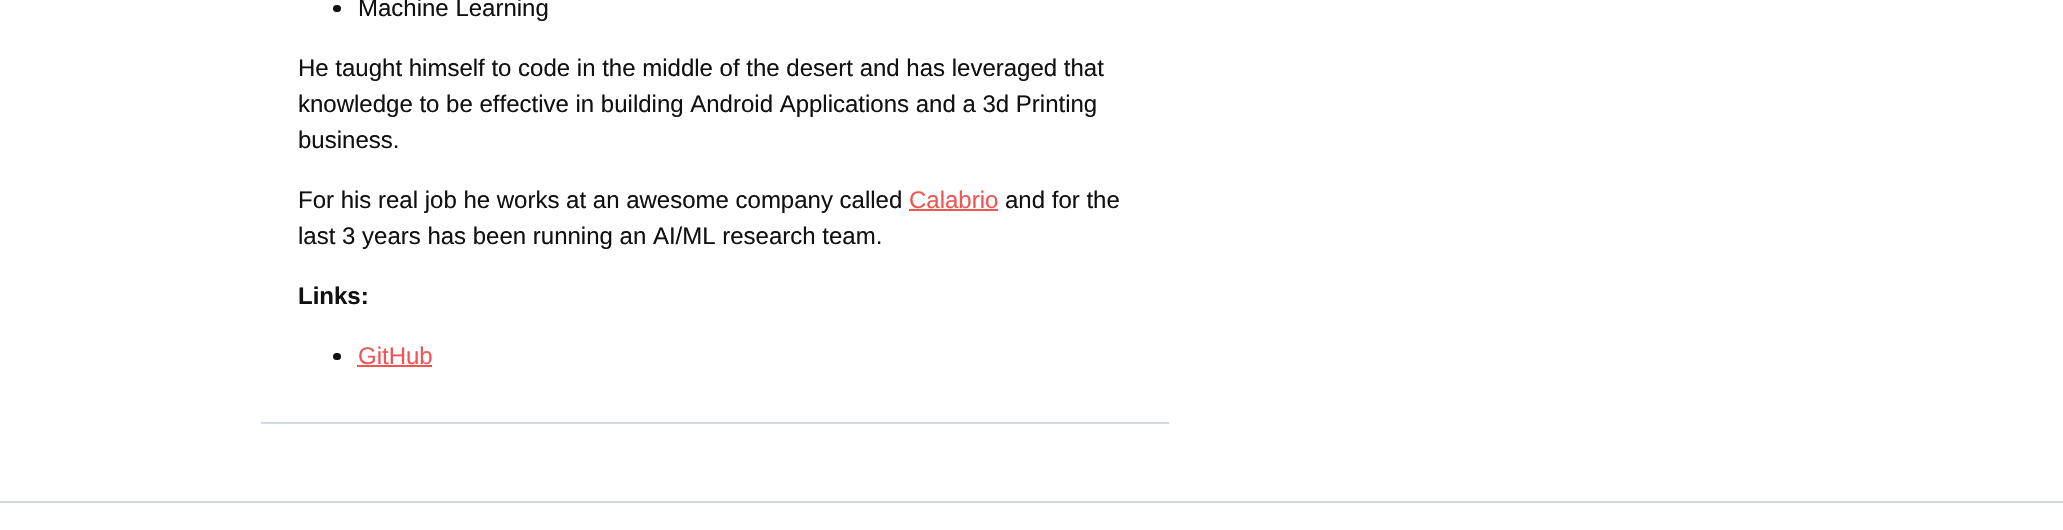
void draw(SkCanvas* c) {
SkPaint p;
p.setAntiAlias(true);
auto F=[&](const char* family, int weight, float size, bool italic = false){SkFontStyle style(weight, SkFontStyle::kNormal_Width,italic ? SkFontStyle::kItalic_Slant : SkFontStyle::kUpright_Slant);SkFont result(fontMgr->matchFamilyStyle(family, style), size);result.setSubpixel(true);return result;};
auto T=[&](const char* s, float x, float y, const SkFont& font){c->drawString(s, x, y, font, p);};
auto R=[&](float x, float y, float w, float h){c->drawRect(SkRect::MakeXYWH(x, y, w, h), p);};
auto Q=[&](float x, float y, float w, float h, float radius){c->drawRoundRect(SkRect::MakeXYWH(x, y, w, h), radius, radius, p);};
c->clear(0xffffffff);
p.setColor(0xff111111);
Q(333,5,8,7,3.5);
auto f1 = F("Liberation Sans",400,24);
T("Machine Learning",358,16,f1);
T("He taught himself to code in the middle of the desert and has leveraged that",298,76,f1);
T("knowledge to be effective in building Android Applications and a 3d Printing",298,112,f1);
T("business.",298,148,f1);
T("For his real job he works at an awesome company called",298,208,f1);
p.setColor(0xfff05555);
T("Calabrio",909,208,f1);
R(909,209,89,2);
p.setColor(0xff111111);
T("and for the",1005,208,f1);
T("last 3 years has been running an AI/ML research team.",298,244,f1);
auto f2 = F("Liberation Sans",700,24);
T("Links:",298,304,f2);
Q(333,353,8,7,3.5);
p.setColor(0xfff05555);
T("GitHub",358,364,f1);
R(357,365,75,2);
p.setColor(0xffd1d9dc);
R(261,422,908,2);
R(0,501,2063,2);
}
